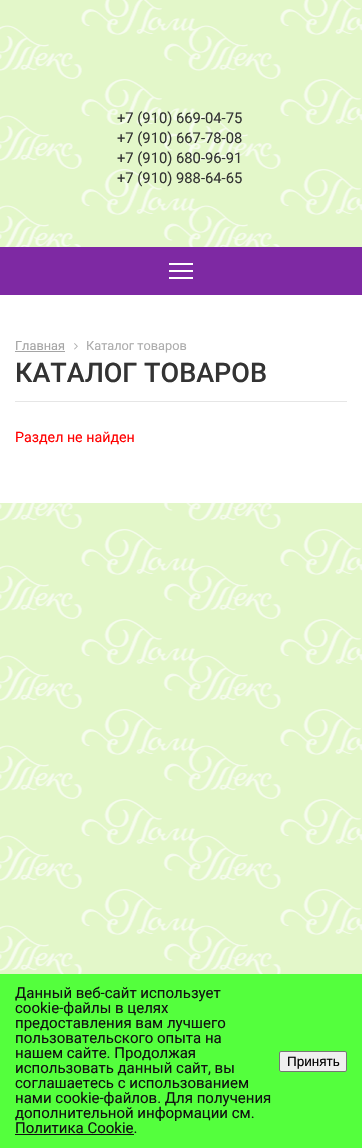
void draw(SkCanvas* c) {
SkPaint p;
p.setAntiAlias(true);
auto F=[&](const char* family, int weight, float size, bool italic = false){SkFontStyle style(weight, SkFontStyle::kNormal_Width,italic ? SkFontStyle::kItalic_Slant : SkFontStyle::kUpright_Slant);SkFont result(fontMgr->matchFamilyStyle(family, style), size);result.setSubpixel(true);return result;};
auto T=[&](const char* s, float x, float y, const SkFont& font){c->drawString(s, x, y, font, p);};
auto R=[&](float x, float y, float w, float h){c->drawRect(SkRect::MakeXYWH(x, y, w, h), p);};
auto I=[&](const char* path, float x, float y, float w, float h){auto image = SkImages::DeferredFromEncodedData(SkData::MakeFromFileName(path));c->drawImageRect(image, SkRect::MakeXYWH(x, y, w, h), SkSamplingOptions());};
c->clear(0xffffffff);
I("1.png",0,0,362,974);
auto f1 = F("Roboto",400,14.75);
p.setColor(0xff333333);
T("+7 (910) 669-04-75",117,123,f1);
T("+7 (910) 667-78-08",117,143,f1);
T("+7 (910) 680-96-91",117,163,f1);
T("+7 (910) 988-64-65",117,183,f1);
p.setColor(0xff7e29a3);
R(0,247,362,48);
p.setColor(0xffffffff);
R(169,270,24,2);
R(169,263,24,2);
R(169,277,24,2);
R(0,295,362,208);
auto f2 = F("Roboto",400,12.75);
p.setColor(0xffa5a5a5);
T("Главная",15,350,f2);
R(15,351,50,1);
I("2.png",74,343,4,7);
p.setColor(0xffacacac);
T("Каталог товаров",86,350,f2);
p.setColor(0xffe6e6e6);
R(15,401,332,1);
auto f3 = F("Roboto",500,27);
p.setColor(0xff333333);
T("КАТАЛОГ ТОВАРОВ",15,382,f3);
auto f4 = F("Roboto",400,14.25);
p.setColor(0xffff0000);
T("Раздел не найден",15,442,f4);
p.setColor(0xff54ff3d);
R(0,974,362,174);
auto f5 = F("Roboto",400,15);
p.setColor(0xff111111);
T("Данный веб-сайт использует",15,998,f5);
T("cookie-файлы в целях",15,1013,f5);
T("предоставления вам лучшего",15,1028,f5);
T("пользовательского опыта на",15,1043,f5);
T("нашем сайте. Продолжая",15,1058,f5);
T("использовать данный сайт, вы",15,1073,f5);
T("соглашаетесь с использованием",15,1088,f5);
T("нами cookie-файлов. Для получения",15,1103,f5);
T("дополнительной информации см.",15,1118,f5);
T("Политика Cookie.",15,1133,f5);
R(15,1134,119,1);
p.setColor(0xffefefef);
c->drawRoundRect(SkRect::MakeXYWH(279.5,1051.5,67,20),1.5,1.5,p);
p.setStroke(true);
p.setStrokeWidth(1);
p.setColor(0xff767676);
c->drawRoundRect(SkRect::MakeXYWH(279.5,1051.5,67,20),1.5,1.5,p);
auto f6 = F("Liberation Sans",400,13.5);
p.setStroke(false);
p.setColor(0xff000000);
T("Принять",287,1066,f6);
}
